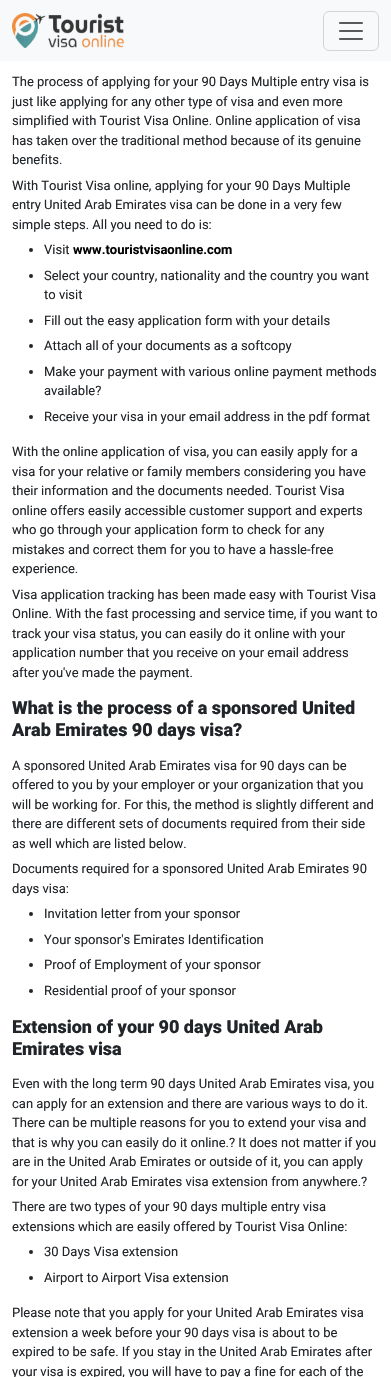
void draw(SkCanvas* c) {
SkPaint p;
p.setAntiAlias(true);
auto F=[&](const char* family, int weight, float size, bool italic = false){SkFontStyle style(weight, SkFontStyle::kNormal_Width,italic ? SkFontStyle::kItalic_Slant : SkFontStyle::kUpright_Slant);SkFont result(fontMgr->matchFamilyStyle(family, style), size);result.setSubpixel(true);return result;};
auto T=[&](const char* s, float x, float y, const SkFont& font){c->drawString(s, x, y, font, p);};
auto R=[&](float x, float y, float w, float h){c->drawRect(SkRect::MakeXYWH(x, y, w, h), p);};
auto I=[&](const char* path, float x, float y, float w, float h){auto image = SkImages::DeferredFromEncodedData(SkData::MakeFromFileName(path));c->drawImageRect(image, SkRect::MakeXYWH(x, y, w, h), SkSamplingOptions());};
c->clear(0xffffffff);
p.setColor(0xfff8f9fa);
R(0,0,391,61);
I("1.png",12,13,112,35);
p.setStroke(true);
p.setStrokeWidth(1);
p.setColor(0xffd3d4d5);
c->drawRoundRect(SkRect::MakeXYWH(323.5,11.5,55,39),5.5,5.5,p);
I("2.png",339,22,24,18);
auto f1 = F("Roboto",400,13);
p.setStroke(false);
p.setColor(0xff212529);
T("The process of applying for your 90 Days Multiple entry visa is",12,86,f1);
T("just like applying for any other type of visa and even more",12,106,f1);
T("simplified with Tourist Visa Online. Online application of visa",12,125,f1);
T("has taken over the traditional method because of its genuine",12,145,f1);
T("benefits.",12,164,f1);
T("With Tourist Visa online, applying for your 90 Days Multiple",12,190,f1);
T("entry United Arab Emirates visa can be done in a very few",12,209,f1);
T("simple steps. All you need to do is:",12,229,f1);
c->drawCircle(31,250,2,p);
T("Visit",44,254,f1);
auto f2 = F("Roboto",700,13);
p.setColor(0xff000000);
T("www.touristvisaonline.com",73,254,f2);
p.setColor(0xff212529);
c->drawCircle(31,276,2,p);
T("Select your country, nationality and the country you want",44,280,f1);
T("to visit",44,299,f1);
c->drawCircle(31,321,2,p);
T("Fill out the easy application form with your details",44,325,f1);
c->drawCircle(31,346,2,p);
T("Attach all of your documents as a softcopy",44,350,f1);
c->drawCircle(31,372,2,p);
T("Make your payment with various online payment methods",44,376,f1);
T("available?",44,395,f1);
c->drawCircle(31,417,2,p);
T("Receive your visa in your email address in the pdf format",44,421,f1);
T("With the online application of visa, you can easily apply for a",12,456,f1);
T("visa for your relative or family members considering you have",12,476,f1);
T("their information and the documents needed. Tourist Visa",12,495,f1);
T("online offers easily accessible customer support and experts",12,515,f1);
T("who go through your application form to check for any",12,534,f1);
T("mistakes and correct them for you to have a hassle-free",12,554,f1);
T("experience.",12,573,f1);
T("Visa application tracking has been made easy with Tourist Visa",12,599,f1);
T("Online. With the fast processing and service time, if you want to",12,618,f1);
T("track your visa status, you can easily do it online with your",12,638,f1);
T("application number that you receive on your email address",12,657,f1);
T("after you've made the payment.",12,677,f1);
auto f3 = F("Roboto",900,18);
T("What is the process of a sponsored United",12,714,f3);
T("Arab Emirates 90 days visa?",12,736,f3);
T("A sponsored United Arab Emirates visa for 90 days can be",12,770,f1);
T("offered to you by your employer or your organization that you",12,789,f1);
T("will be working for. For this, the method is slightly different and",12,809,f1);
T("there are different sets of documents required from their side",12,828,f1);
T("as well which are listed below.",12,848,f1);
T("Documents required for a sponsored United Arab Emirates 90",12,873,f1);
T("days visa:",12,893,f1);
c->drawCircle(31,914,2,p);
T("Invitation letter from your sponsor",44,918,f1);
c->drawCircle(31,940,2,p);
T("Your sponsor's Emirates Identification",44,944,f1);
c->drawCircle(31,965,2,p);
T("Proof of Employment of your sponsor",44,969,f1);
c->drawCircle(31,991,2,p);
T("Residential proof of your sponsor",44,995,f1);
T("Extension of your 90 days United Arab",12,1033,f3);
T("Emirates visa",12,1055,f3);
T("Even with the long term 90 days United Arab Emirates visa, you",12,1088,f1);
T("can apply for an extension and there are various ways to do it.",12,1108,f1);
T("There can be multiple reasons for you to extend your visa and",12,1127,f1);
T("that is why you can easily do it online.? It does not matter if you",12,1147,f1);
T("are in the United Arab Emirates or outside of it, you can apply",12,1166,f1);
T("for your United Arab Emirates visa extension from anywhere.?",12,1186,f1);
T("There are two types of your 90 days multiple entry visa",12,1211,f1);
T("extensions which are easily offered by Tourist Visa Online:",12,1231,f1);
c->drawCircle(31,1252,2,p);
T("30 Days Visa extension",44,1256,f1);
c->drawCircle(31,1278,2,p);
T("Airport to Airport Visa extension",44,1282,f1);
T("Please note that you apply for your United Arab Emirates visa",12,1317,f1);
T("extension a week before your 90 days visa is about to be",12,1337,f1);
T("expired to be safe. If you stay in the United Arab Emirates after",12,1356,f1);
T("your visa is expired, you will have to pay a fine for each of the",12,1376,f1);
}
